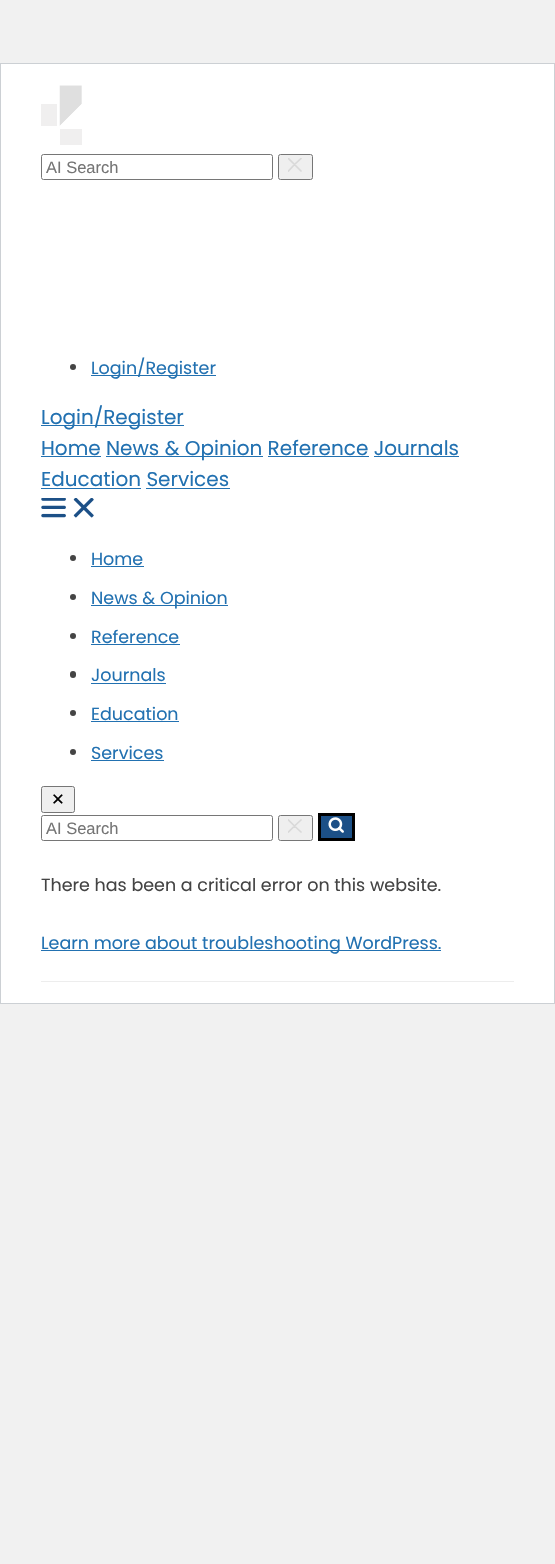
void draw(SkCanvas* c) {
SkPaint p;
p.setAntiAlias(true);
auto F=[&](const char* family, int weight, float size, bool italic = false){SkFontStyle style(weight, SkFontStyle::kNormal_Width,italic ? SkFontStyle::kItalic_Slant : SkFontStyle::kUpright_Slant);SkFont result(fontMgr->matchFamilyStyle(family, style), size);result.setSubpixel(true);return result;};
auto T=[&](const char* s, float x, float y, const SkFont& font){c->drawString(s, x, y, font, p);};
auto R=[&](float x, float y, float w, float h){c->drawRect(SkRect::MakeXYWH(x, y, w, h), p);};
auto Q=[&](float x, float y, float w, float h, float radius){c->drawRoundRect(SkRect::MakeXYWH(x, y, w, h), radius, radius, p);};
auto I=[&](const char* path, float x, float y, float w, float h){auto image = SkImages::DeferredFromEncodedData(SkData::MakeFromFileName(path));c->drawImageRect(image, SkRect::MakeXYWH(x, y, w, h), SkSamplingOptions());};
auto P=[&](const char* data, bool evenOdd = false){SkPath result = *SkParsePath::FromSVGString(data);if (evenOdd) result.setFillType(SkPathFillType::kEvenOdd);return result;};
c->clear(0xfff1f1f1);
p.setColor(0xffffffff);
c->drawRect(SkRect::MakeXYWH(.5,63.5,554,940),p);
p.setStroke(true);
p.setStrokeWidth(1);
p.setColor(0xffccd0d4);
c->drawRect(SkRect::MakeXYWH(.5,63.5,554,940),p);
I("1.png",41,85,41,60);
p.setColor(0xff767676);
c->drawRoundRect(SkRect::MakeXYWH(41.5,154.5,231,25),2,2,p);
auto f1 = F("Liberation Sans",400,16.5);
p.setStroke(false);
p.setColor(0xff757575);
T("AI Search",46,173,f1);
p.setColor(0xffefefef);
c->drawRoundRect(SkRect::MakeXYWH(278.5,154.5,34,25),2,2,p);
p.setStroke(true);
p.setColor(0xff767676);
c->drawRoundRect(SkRect::MakeXYWH(278.5,154.5,34,25),2,2,p);
c->save();
c->clipRect(SkRect::MakeXYWH(288,158,15,15));
p.setStrokeWidth(1.7);
p.setStrokeCap(SkPaint::kRound_Cap);
p.setStrokeJoin(SkPaint::kRound_Join);
p.setColor(0xffd9d9d9);
c->drawPath(P("M288.5 171l6-6.5l6.5 6.5m0-12.5l-6.5 6l-6-6"),p);
c->restore();
p.setStroke(false);
p.setColor(0xff444444);
c->drawCircle(73,367,3,p);
p.setColor(0xff2271b1);
R(91,375,125,1);
auto f2 = F("Poppins",400,17.5);
T("Login/Register",91,374,f2);
R(41,425,143,1);
auto f3 = F("Poppins",400,20);
T("Login/Register",41,424,f3);
T("Home",41,455,f3);
R(41,456,60,1);
R(106,456,157,1);
T("News & Opinion Reference Journals",106,455,f3);
R(268,456,101,1);
R(374,456,85,1);
T("Education Services",41,486,f3);
R(41,488,100,1);
R(146,488,84,1);
I("2.png",41,498,25,20);
I("3.png",73,498,21,20);
p.setColor(0xff444444);
c->drawCircle(73,558,3,p);
p.setColor(0xff2271b1);
T("Home",91,565,f2);
R(91,566,53,1);
p.setColor(0xff444444);
c->drawCircle(73,597,3,p);
p.setColor(0xff2271b1);
R(91,605,137,1);
T("News & Opinion",91,604,f2);
p.setColor(0xff444444);
c->drawCircle(73,636,3,p);
p.setColor(0xff2271b1);
T("Reference",91,643,f2);
R(91,644,89,1);
p.setColor(0xff444444);
Q(70,671,6,7,3);
p.setColor(0xff2271b1);
T("Journals",91,681,f2);
R(91,683,75,1);
p.setColor(0xff444444);
c->drawCircle(73,713,3,p);
p.setColor(0xff2271b1);
T("Education",91,720,f2);
R(91,721,88,1);
p.setColor(0xff444444);
c->drawCircle(73,752,3,p);
p.setColor(0xff2271b1);
T("Services",91,759,f2);
R(91,760,73,1);
p.setColor(0xffefefef);
c->drawRoundRect(SkRect::MakeXYWH(41.5,786.5,33,26),2,2,p);
p.setStroke(true);
p.setStrokeWidth(1);
p.setStrokeCap(SkPaint::kButt_Cap);
p.setStrokeJoin(SkPaint::kMiter_Join);
p.setColor(0xff767676);
c->drawRoundRect(SkRect::MakeXYWH(41.5,786.5,33,26),2,2,p);
auto f4 = F("DejaVu Sans",400,16.5);
p.setStroke(false);
p.setColor(0xff000000);
T("✕",51,805,f4);
p.setStroke(true);
p.setColor(0xff767676);
c->drawRoundRect(SkRect::MakeXYWH(41.5,815.5,231,25),2,2,p);
p.setStroke(false);
p.setColor(0xff757575);
T("AI Search",46,834,f1);
p.setColor(0xffefefef);
c->drawRoundRect(SkRect::MakeXYWH(278.5,815.5,34,25),2,2,p);
p.setStroke(true);
p.setColor(0xff767676);
c->drawRoundRect(SkRect::MakeXYWH(278.5,815.5,34,25),2,2,p);
c->save();
c->clipRect(SkRect::MakeXYWH(288,819,15,15));
p.setStrokeWidth(1.7);
p.setStrokeCap(SkPaint::kRound_Cap);
p.setStrokeJoin(SkPaint::kRound_Join);
p.setColor(0xffd9d9d9);
c->drawPath(P("M288.5 832l6-6l6.5 6m0-12l-6.5 6l-6-6"),p);
c->restore();
p.setStroke(false);
p.setColor(0xff1c5087);
c->drawRect(SkRect::MakeXYWH(319.5,814.5,34,25),p);
p.setStroke(true);
p.setStrokeWidth(3);
p.setStrokeCap(SkPaint::kButt_Cap);
p.setStrokeJoin(SkPaint::kMiter_Join);
p.setColor(0xff000000);
c->drawRect(SkRect::MakeXYWH(319.5,814.5,34,25),p);
I("4.png",328,817,16,16);
p.setStroke(false);
p.setColor(0xffededed);
R(41,981,473,1);
p.setColor(0xff444444);
T("There has been a critical error on this website.",41,891,f2);
p.setColor(0xff2271b1);
R(41,950,400,1);
T("Learn more about troubleshooting WordPress.",41,949,f2);
}
